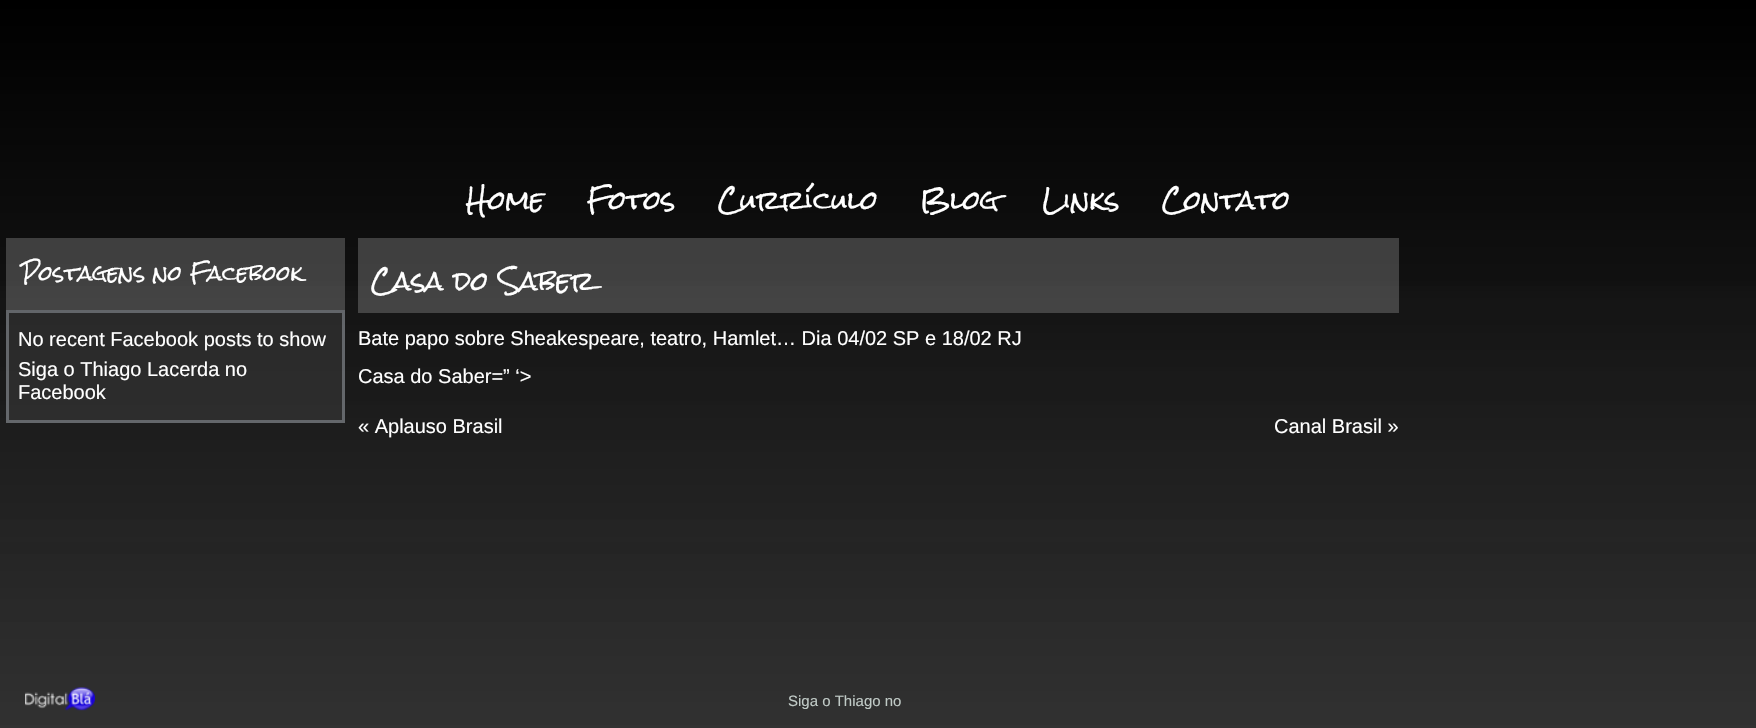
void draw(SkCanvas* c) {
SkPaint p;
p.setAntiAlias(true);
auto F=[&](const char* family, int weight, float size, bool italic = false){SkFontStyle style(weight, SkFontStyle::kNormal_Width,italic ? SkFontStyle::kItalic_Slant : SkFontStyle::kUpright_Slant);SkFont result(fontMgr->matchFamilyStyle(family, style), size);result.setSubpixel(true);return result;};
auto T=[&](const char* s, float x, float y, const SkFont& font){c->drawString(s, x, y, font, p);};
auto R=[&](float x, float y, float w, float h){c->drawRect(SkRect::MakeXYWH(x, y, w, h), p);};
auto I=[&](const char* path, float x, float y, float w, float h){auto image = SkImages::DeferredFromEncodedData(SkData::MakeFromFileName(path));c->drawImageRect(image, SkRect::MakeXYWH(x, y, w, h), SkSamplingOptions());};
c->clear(0xffffffff);
{
const SkColor colors[] = {0xff000000,0xff4d4d4d};
const float stops[] = {0,1};
const SkPoint ends[] = {{878,0}, {878,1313}};
p.setShader(SkGradientShader::MakeLinear(ends, colors, stops, 2, SkTileMode::kClamp));
p.setAlpha(255);
}
R(0,0,1756,728);
{
const SkColor colors[] = {0x3d000000,0x54737373};
const float stops[] = {0,1};
const SkPoint ends[] = {{878,0}, {878,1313}};
p.setShader(SkGradientShader::MakeLinear(ends, colors, stops, 2, SkTileMode::kClamp));
p.setAlpha(255);
}
R(0,286,1756,442);
auto f1 = F("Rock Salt",400,25);
p.setShader(nullptr);
p.setColor(0xffffffff);
T("Home",466,210,f1);
T("Fotos",587,210,f1);
T("Currículo",718,210,f1);
T("Blog",920,210,f1);
T("Links",1042,210,f1);
T("Contato",1162,210,f1);
p.setColor(0x33ffffff);
R(6,238,339,185);
auto f2 = F("Rock Salt",400,20);
p.setColor(0xffffffff);
T("Postagens no Facebook",21,281,f2);
p.setColor(0x66000000);
R(6,310,339,113);
p.setStroke(true);
p.setStrokeWidth(3);
p.setColor(0x66b6bfc9);
c->drawRect(SkRect::MakeXYWH(7.5,311.5,336,110),p);
auto f3 = F("Liberation Sans",400,20);
p.setStroke(false);
p.setColor(0xffffffff);
T("No recent Facebook posts to show",18,346,f3);
T("Siga o Thiago Lacerda no",18,376,f3);
T("Facebook",18,399,f3);
p.setColor(0x33ffffff);
R(358,238,1041,75);
p.setColor(0xffffffff);
T("Casa do Saber",371,291,f1);
T("Bate papo sobre Sheakespeare, teatro, Hamlet… Dia 04/02 SP e 18/02 RJ",358,345,f3);
T("Casa do Saber=” ‘>",358,383,f3);
T("« Aplauso Brasil",358,433,f3);
T("Canal Brasil »",1274,433,f3);
I("1.png",25,687,70,24);
auto f4 = F("Liberation Sans",400,15);
p.setColor(0xffc0cac6);
T("Siga o Thiago no",788,706,f4);
}
